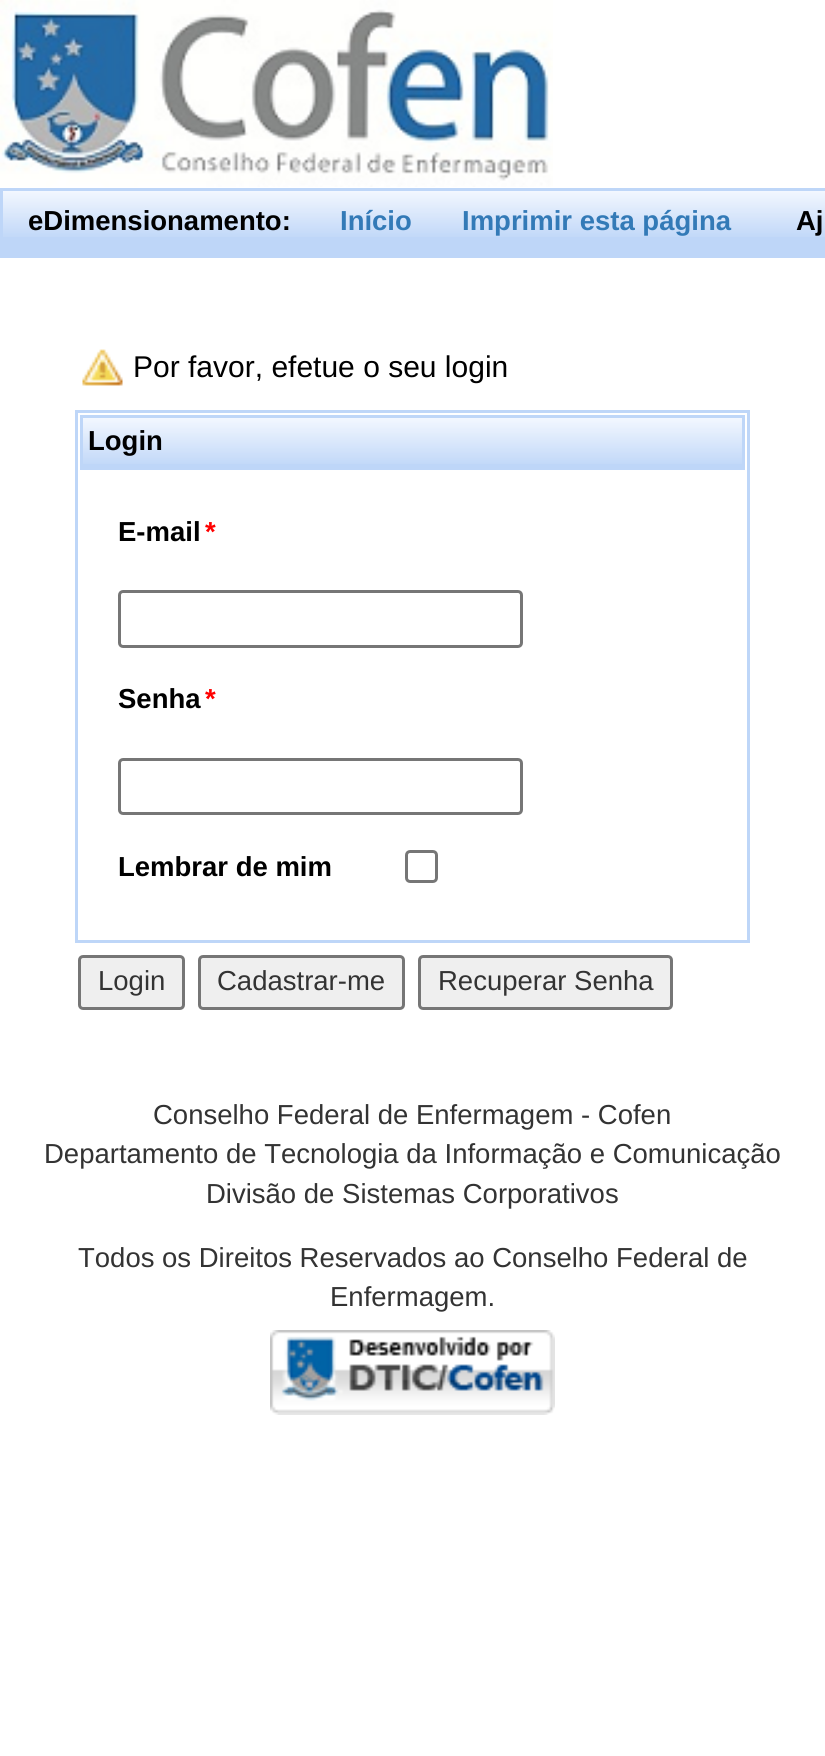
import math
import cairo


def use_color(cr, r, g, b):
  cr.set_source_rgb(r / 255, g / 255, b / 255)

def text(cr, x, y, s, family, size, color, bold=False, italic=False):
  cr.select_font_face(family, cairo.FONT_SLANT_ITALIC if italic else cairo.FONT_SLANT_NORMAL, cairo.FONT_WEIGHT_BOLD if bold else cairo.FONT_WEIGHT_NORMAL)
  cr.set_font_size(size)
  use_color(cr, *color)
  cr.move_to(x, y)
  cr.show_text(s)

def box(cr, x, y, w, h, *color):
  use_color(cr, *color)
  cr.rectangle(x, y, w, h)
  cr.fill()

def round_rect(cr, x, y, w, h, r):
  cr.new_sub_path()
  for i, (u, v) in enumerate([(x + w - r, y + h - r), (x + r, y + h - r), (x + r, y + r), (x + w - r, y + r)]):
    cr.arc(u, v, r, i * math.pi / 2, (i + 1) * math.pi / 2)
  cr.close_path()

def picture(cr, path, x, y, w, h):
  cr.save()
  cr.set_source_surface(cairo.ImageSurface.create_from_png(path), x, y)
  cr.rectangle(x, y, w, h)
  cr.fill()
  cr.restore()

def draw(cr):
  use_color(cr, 255, 255, 255)
  cr.paint()
  picture(cr, "img_01.png", 0, 0, 553, 187)
  box(cr, 3, 237, 822, 21, 190, 214, 248)
  picture(cr, "img_02.png", 3, 191, 822, 46)
  box(cr, 0, 188, 825, 3, 190, 214, 248)
  box(cr, 0, 188, 3, 70, 190, 214, 248)
  picture(cr, "img_03.png", 82, 349, 41, 37)
  cr.rectangle(76.5, 411.5, 672, 530)
  cr.set_line_width(3)
  cr.stroke()
  box(cr, 83, 464, 659, 3, 190, 214, 248)
  picture(cr, "img_04.png", 83, 418, 659, 46)
  cr.rectangle(81.5, 416.5, 662, 52)
  cr.stroke()
  round_rect(cr, 119.5, 591.5, 402, 55, 3.5)
  use_color(cr, 118, 118, 118)
  cr.stroke()
  round_rect(cr, 119.5, 759.5, 402, 54, 3.5)
  cr.stroke()
  round_rect(cr, 406.5, 851.5, 30, 30, 3.5)
  cr.stroke()
  use_color(cr, 239, 239, 239)
  round_rect(cr, 79.5, 956.5, 104, 52, 3.5)
  cr.fill_preserve()
  use_color(cr, 118, 118, 118)
  cr.stroke()
  use_color(cr, 239, 239, 239)
  round_rect(cr, 199.5, 956.5, 204, 52, 3.5)
  cr.fill_preserve()
  use_color(cr, 118, 118, 118)
  cr.stroke()
  use_color(cr, 239, 239, 239)
  round_rect(cr, 419.5, 956.5, 252, 52, 3.5)
  cr.fill_preserve()
  use_color(cr, 118, 118, 118)
  cr.stroke()
  picture(cr, "img_05.png", 270, 1330, 285, 85)
  text(cr, 28, 230, "eDimensionamento:", "Liberation Sans", 27.5, (0, 0, 0), bold=True)
  text(cr, 340, 230, "Início", "Liberation Sans", 27.5, (51, 122, 183), bold=True)
  text(cr, 462, 230, "Imprimir esta página", "Liberation Sans", 27.5, (51, 122, 183), bold=True)
  text(cr, 796, 230, "Aj", "Liberation Sans", 27.5, (0, 0, 0), bold=True)
  text(cr, 133, 377, "Por favor, efetue o seu login", "Liberation Sans", 30, (0, 0, 0))
  text(cr, 88, 450, "Login", "Liberation Sans", 27.5, (0, 0, 0), bold=True)
  text(cr, 118, 541, "E-mail", "Liberation Sans", 27.5, (0, 0, 0), bold=True)
  text(cr, 205, 541, "*", "Liberation Sans", 27.5, (255, 0, 0), bold=True)
  text(cr, 118, 708, "Senha", "Liberation Sans", 27.5, (0, 0, 0), bold=True)
  text(cr, 205, 708, "*", "Liberation Sans", 27.5, (255, 0, 0), bold=True)
  text(cr, 118, 876, "Lembrar de mim", "Liberation Sans", 27.5, (0, 0, 0), bold=True)
  text(cr, 98, 990, "Login", "Liberation Sans", 27.5, (51, 51, 51))
  text(cr, 217, 990, "Cadastrar-me", "Liberation Sans", 27.5, (51, 51, 51))
  text(cr, 438, 990, "Recuperar Senha", "Liberation Sans", 27.5, (51, 51, 51))
  text(cr, 153, 1124, "Conselho Federal de Enfermagem - Cofen", "Liberation Sans", 27.5, (51, 51, 51))
  text(cr, 44, 1163, "Departamento de Tecnologia da Informação e Comunicação", "Liberation Sans", 27.5, (51, 51, 51))
  text(cr, 206, 1203, "Divisão de Sistemas Corporativos", "Liberation Sans", 27.5, (51, 51, 51))
  text(cr, 78, 1267, "Todos os Direitos Reservados ao Conselho Federal de", "Liberation Sans", 27.5, (51, 51, 51))
  text(cr, 330, 1306, "Enfermagem.", "Liberation Sans", 27.5, (51, 51, 51))


surface = cairo.ImageSurface(cairo.FORMAT_RGB24, 825, 1756)
cr = cairo.Context(surface)
options = cairo.FontOptions()
options.set_hint_metrics(cairo.HINT_METRICS_OFF)
options.set_hint_style(cairo.HINT_STYLE_NONE)
cr.set_font_options(options)
cr.set_miter_limit(4)
draw(cr)
surface.write_to_png("out.png")
